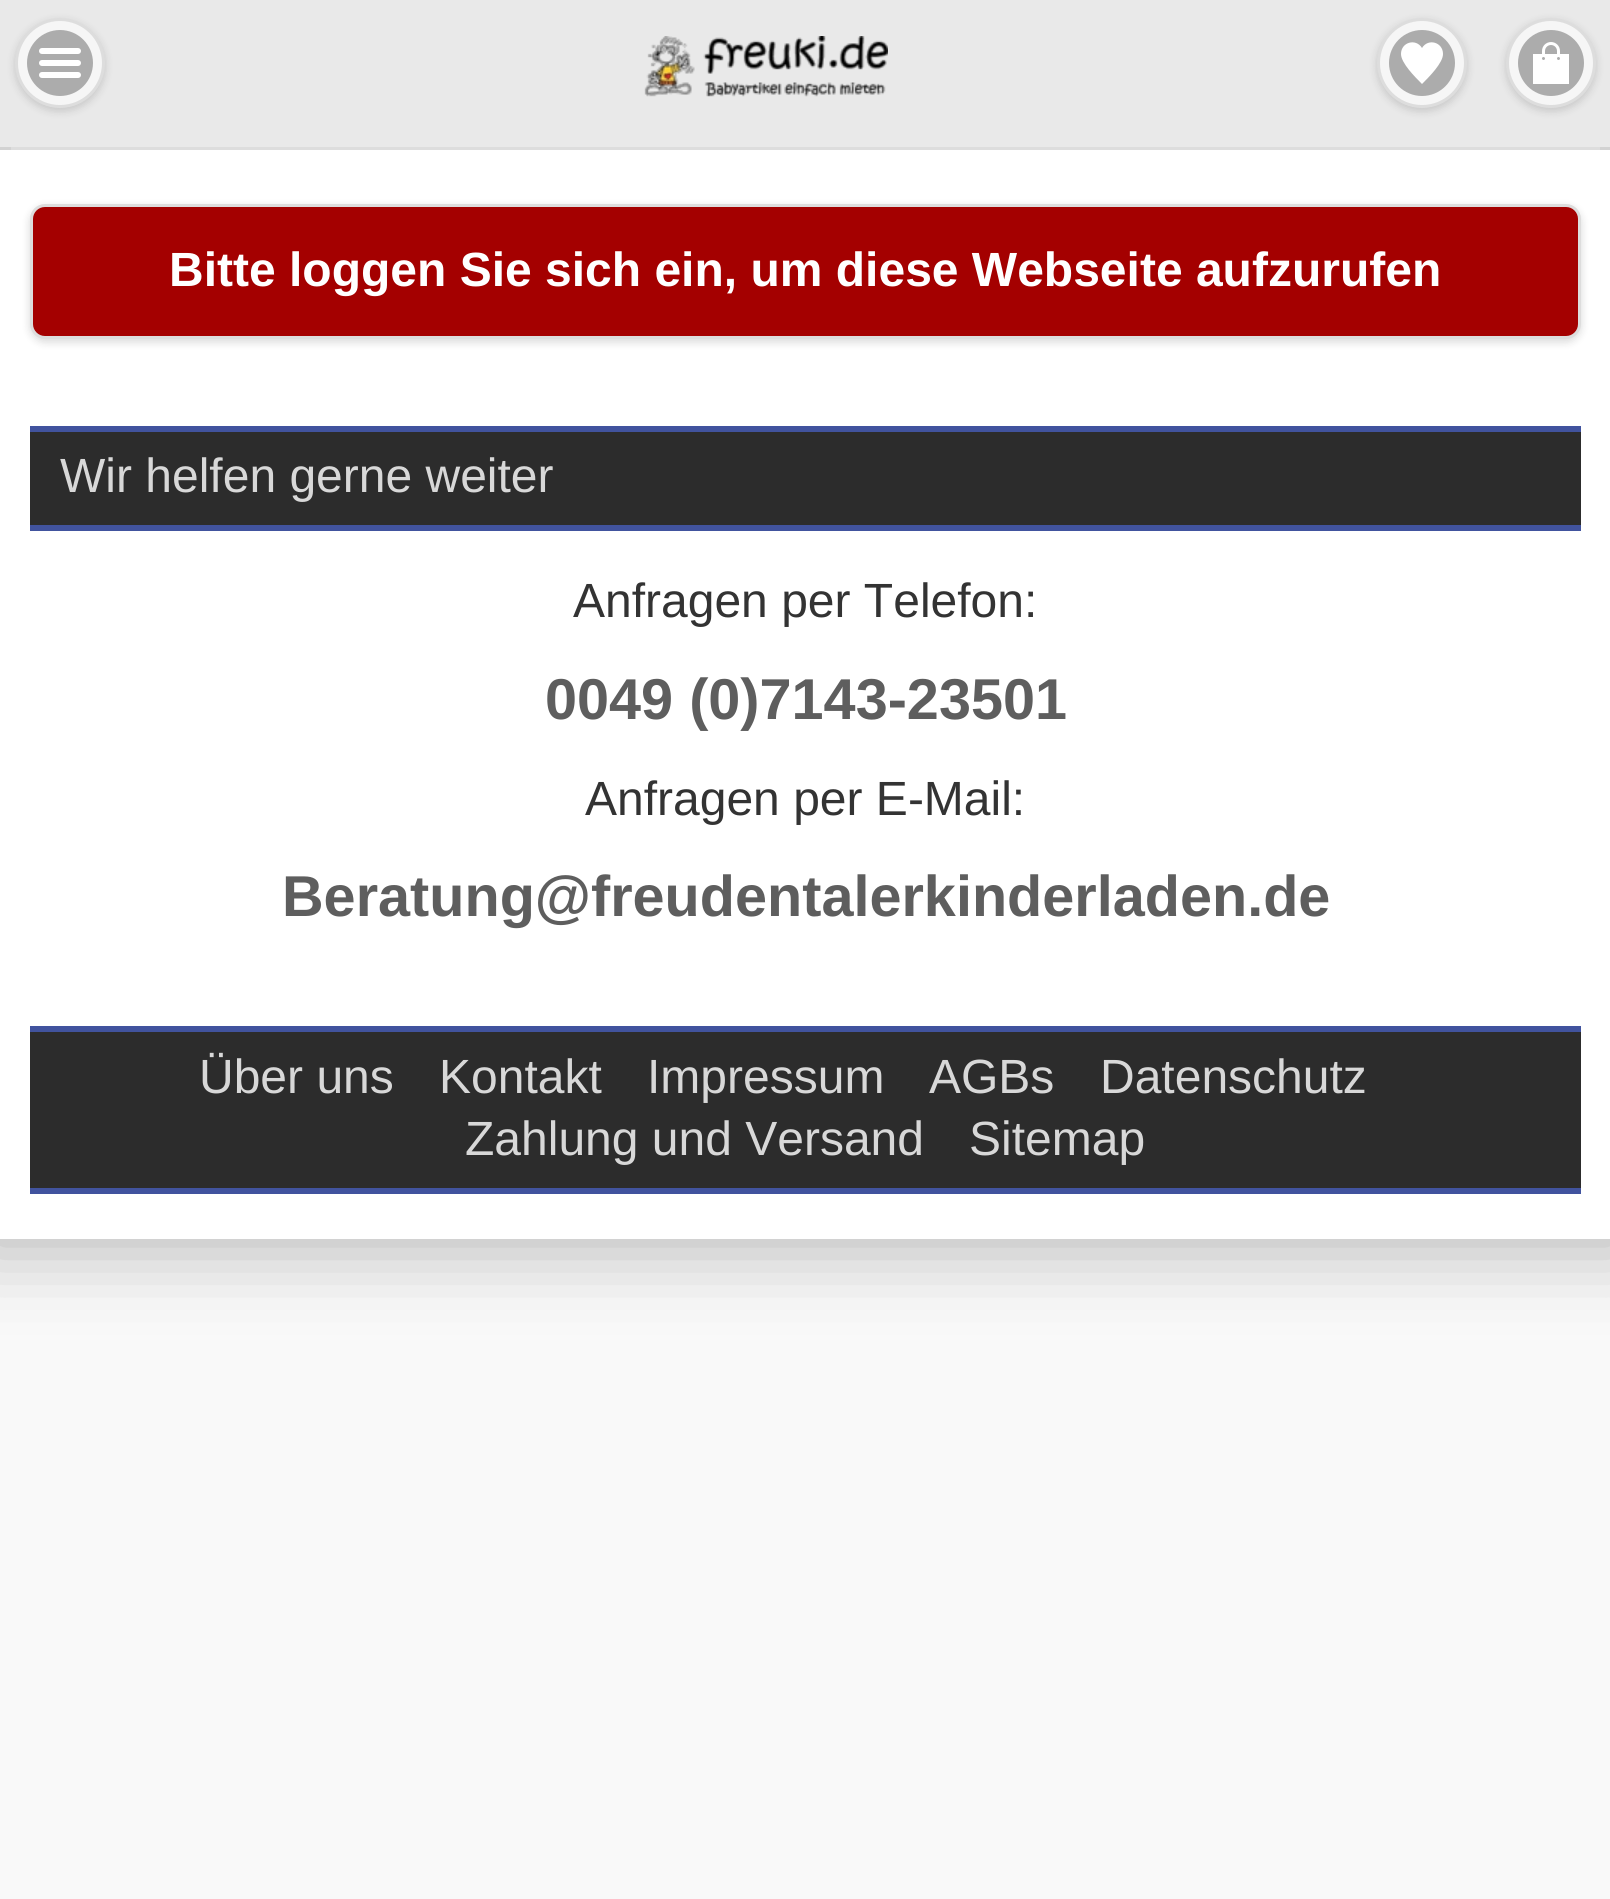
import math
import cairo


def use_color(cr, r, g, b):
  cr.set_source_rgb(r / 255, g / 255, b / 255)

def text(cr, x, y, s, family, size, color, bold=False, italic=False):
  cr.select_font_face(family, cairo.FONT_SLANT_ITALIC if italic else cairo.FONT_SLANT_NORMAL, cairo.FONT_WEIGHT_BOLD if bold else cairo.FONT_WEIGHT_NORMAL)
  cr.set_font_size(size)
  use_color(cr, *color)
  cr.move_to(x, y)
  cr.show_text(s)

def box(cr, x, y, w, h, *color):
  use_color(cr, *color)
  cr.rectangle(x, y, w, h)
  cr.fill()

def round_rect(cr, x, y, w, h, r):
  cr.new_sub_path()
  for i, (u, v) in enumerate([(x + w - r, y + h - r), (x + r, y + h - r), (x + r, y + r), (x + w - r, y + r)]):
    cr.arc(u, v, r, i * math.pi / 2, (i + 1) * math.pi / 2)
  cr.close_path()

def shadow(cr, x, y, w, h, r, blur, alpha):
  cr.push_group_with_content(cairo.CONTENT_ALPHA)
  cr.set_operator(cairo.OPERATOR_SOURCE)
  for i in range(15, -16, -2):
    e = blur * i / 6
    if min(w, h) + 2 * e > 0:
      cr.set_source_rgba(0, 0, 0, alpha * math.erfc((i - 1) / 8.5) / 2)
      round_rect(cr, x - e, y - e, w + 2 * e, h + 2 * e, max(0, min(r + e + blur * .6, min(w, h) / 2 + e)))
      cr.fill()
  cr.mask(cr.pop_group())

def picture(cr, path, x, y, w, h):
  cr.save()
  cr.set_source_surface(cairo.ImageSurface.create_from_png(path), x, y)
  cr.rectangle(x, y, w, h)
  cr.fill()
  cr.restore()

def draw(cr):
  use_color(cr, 249, 249, 249)
  cr.paint()
  use_color(cr, 0, 0, 0)
  shadow(cr, -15, 135, 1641, 1119, 0, 37.5, 0.25)
  box(cr, 0, 0, 1610, 147, 233, 233, 233)
  box(cr, 11, 147, 1589, 3, 221, 221, 221)
  use_color(cr, 0, 0, 0)
  shadow(cr, 15, 21, 90, 90, 45, 4.5, 0.15)
  use_color(cr, 246, 246, 246)
  cr.arc(60, 63, 43.5, 0, 2 * math.pi)
  cr.fill_preserve()
  use_color(cr, 221, 221, 221)
  cr.set_line_width(3)
  cr.stroke()
  use_color(cr, 172, 172, 172)
  cr.arc(60, 63, 33, 0, 2 * math.pi)
  cr.fill()
  picture(cr, "img_01.png", 39, 48, 42, 30)
  picture(cr, "img_02.png", 644, 36, 244, 61)
  use_color(cr, 0, 0, 0)
  shadow(cr, 1377, 21, 90, 90, 45, 4.5, 0.15)
  use_color(cr, 246, 246, 246)
  cr.arc(1422, 63, 43.5, 0, 2 * math.pi)
  cr.fill_preserve()
  use_color(cr, 221, 221, 221)
  cr.stroke()
  use_color(cr, 172, 172, 172)
  cr.arc(1422, 63, 33, 0, 2 * math.pi)
  cr.fill()
  use_color(cr, 255, 255, 255)
  cr.new_path()
  cr.move_to(1422, 48)
  cr.curve_to(1416, 38, 1401, 42, 1401, 54)
  cr.curve_to(1401, 63, 1415, 77, 1422, 84)
  cr.curve_to(1429, 77, 1443, 63, 1443, 54)
  cr.curve_to(1443, 42, 1428, 38, 1422, 48)
  cr.close_path()
  cr.fill()
  use_color(cr, 0, 0, 0)
  shadow(cr, 1506, 21, 90, 90, 45, 4.5, 0.15)
  use_color(cr, 246, 246, 246)
  cr.arc(1551, 63, 43.5, 0, 2 * math.pi)
  cr.fill_preserve()
  use_color(cr, 221, 221, 221)
  cr.stroke()
  use_color(cr, 172, 172, 172)
  cr.arc(1551, 63, 33, 0, 2 * math.pi)
  cr.fill()
  picture(cr, "img_03.png", 1533, 42, 36, 42)
  box(cr, 0, 150, 1610, 1089, 255, 255, 255)
  use_color(cr, 0, 0, 0)
  shadow(cr, 30, 207, 1551, 135, 15, 4.5, 0.15)
  use_color(cr, 164, 0, 0)
  round_rect(cr, 31.5, 205.5, 1548, 132, 13.5)
  cr.fill_preserve()
  use_color(cr, 221, 221, 221)
  cr.stroke()
  box(cr, 30, 432, 1551, 93, 44, 44, 44)
  box(cr, 30, 426, 1551, 6, 65, 83, 158)
  box(cr, 30, 525, 1551, 6, 65, 83, 158)
  box(cr, 30, 1032, 1551, 156, 44, 44, 44)
  box(cr, 30, 1026, 1551, 6, 65, 83, 158)
  box(cr, 30, 1188, 1551, 6, 65, 83, 158)
  text(cr, 169, 286, "Bitte loggen Sie sich ein, um diese Webseite aufzurufen", "Liberation Sans", 48, (255, 255, 255), bold=True)
  text(cr, 60, 492, "Wir helfen gerne weiter", "Liberation Sans", 48, (216, 216, 216))
  text(cr, 573, 617, "Anfragen per Telefon:", "Liberation Sans", 48, (51, 51, 51))
  text(cr, 545, 719, "0049 (0)7143-23501", "Liberation Sans", 57.6, (94, 94, 94), bold=True)
  text(cr, 585, 815, "Anfragen per E-Mail:", "Liberation Sans", 48, (51, 51, 51))
  text(cr, 282, 916, "Beratung@freudentalerkinderladen.de", "Liberation Sans", 57.6, (94, 94, 94), bold=True)
  text(cr, 199, 1093, "Über uns", "Liberation Sans", 48, (216, 216, 216))
  text(cr, 439, 1093, "Kontakt", "Liberation Sans", 48, (216, 216, 216))
  text(cr, 647, 1093, "Impressum", "Liberation Sans", 48, (216, 216, 216))
  text(cr, 929, 1093, "AGBs", "Liberation Sans", 48, (216, 216, 216))
  text(cr, 1100, 1093, "Datenschutz", "Liberation Sans", 48, (216, 216, 216))
  text(cr, 465, 1155, "Zahlung und Versand", "Liberation Sans", 48, (216, 216, 216))
  text(cr, 969, 1155, "Sitemap", "Liberation Sans", 48, (216, 216, 216))


surface = cairo.ImageSurface(cairo.FORMAT_RGB24, 1610, 1899)
cr = cairo.Context(surface)
options = cairo.FontOptions()
options.set_hint_metrics(cairo.HINT_METRICS_OFF)
options.set_hint_style(cairo.HINT_STYLE_NONE)
cr.set_font_options(options)
cr.set_miter_limit(4)
draw(cr)
surface.write_to_png("out.png")
